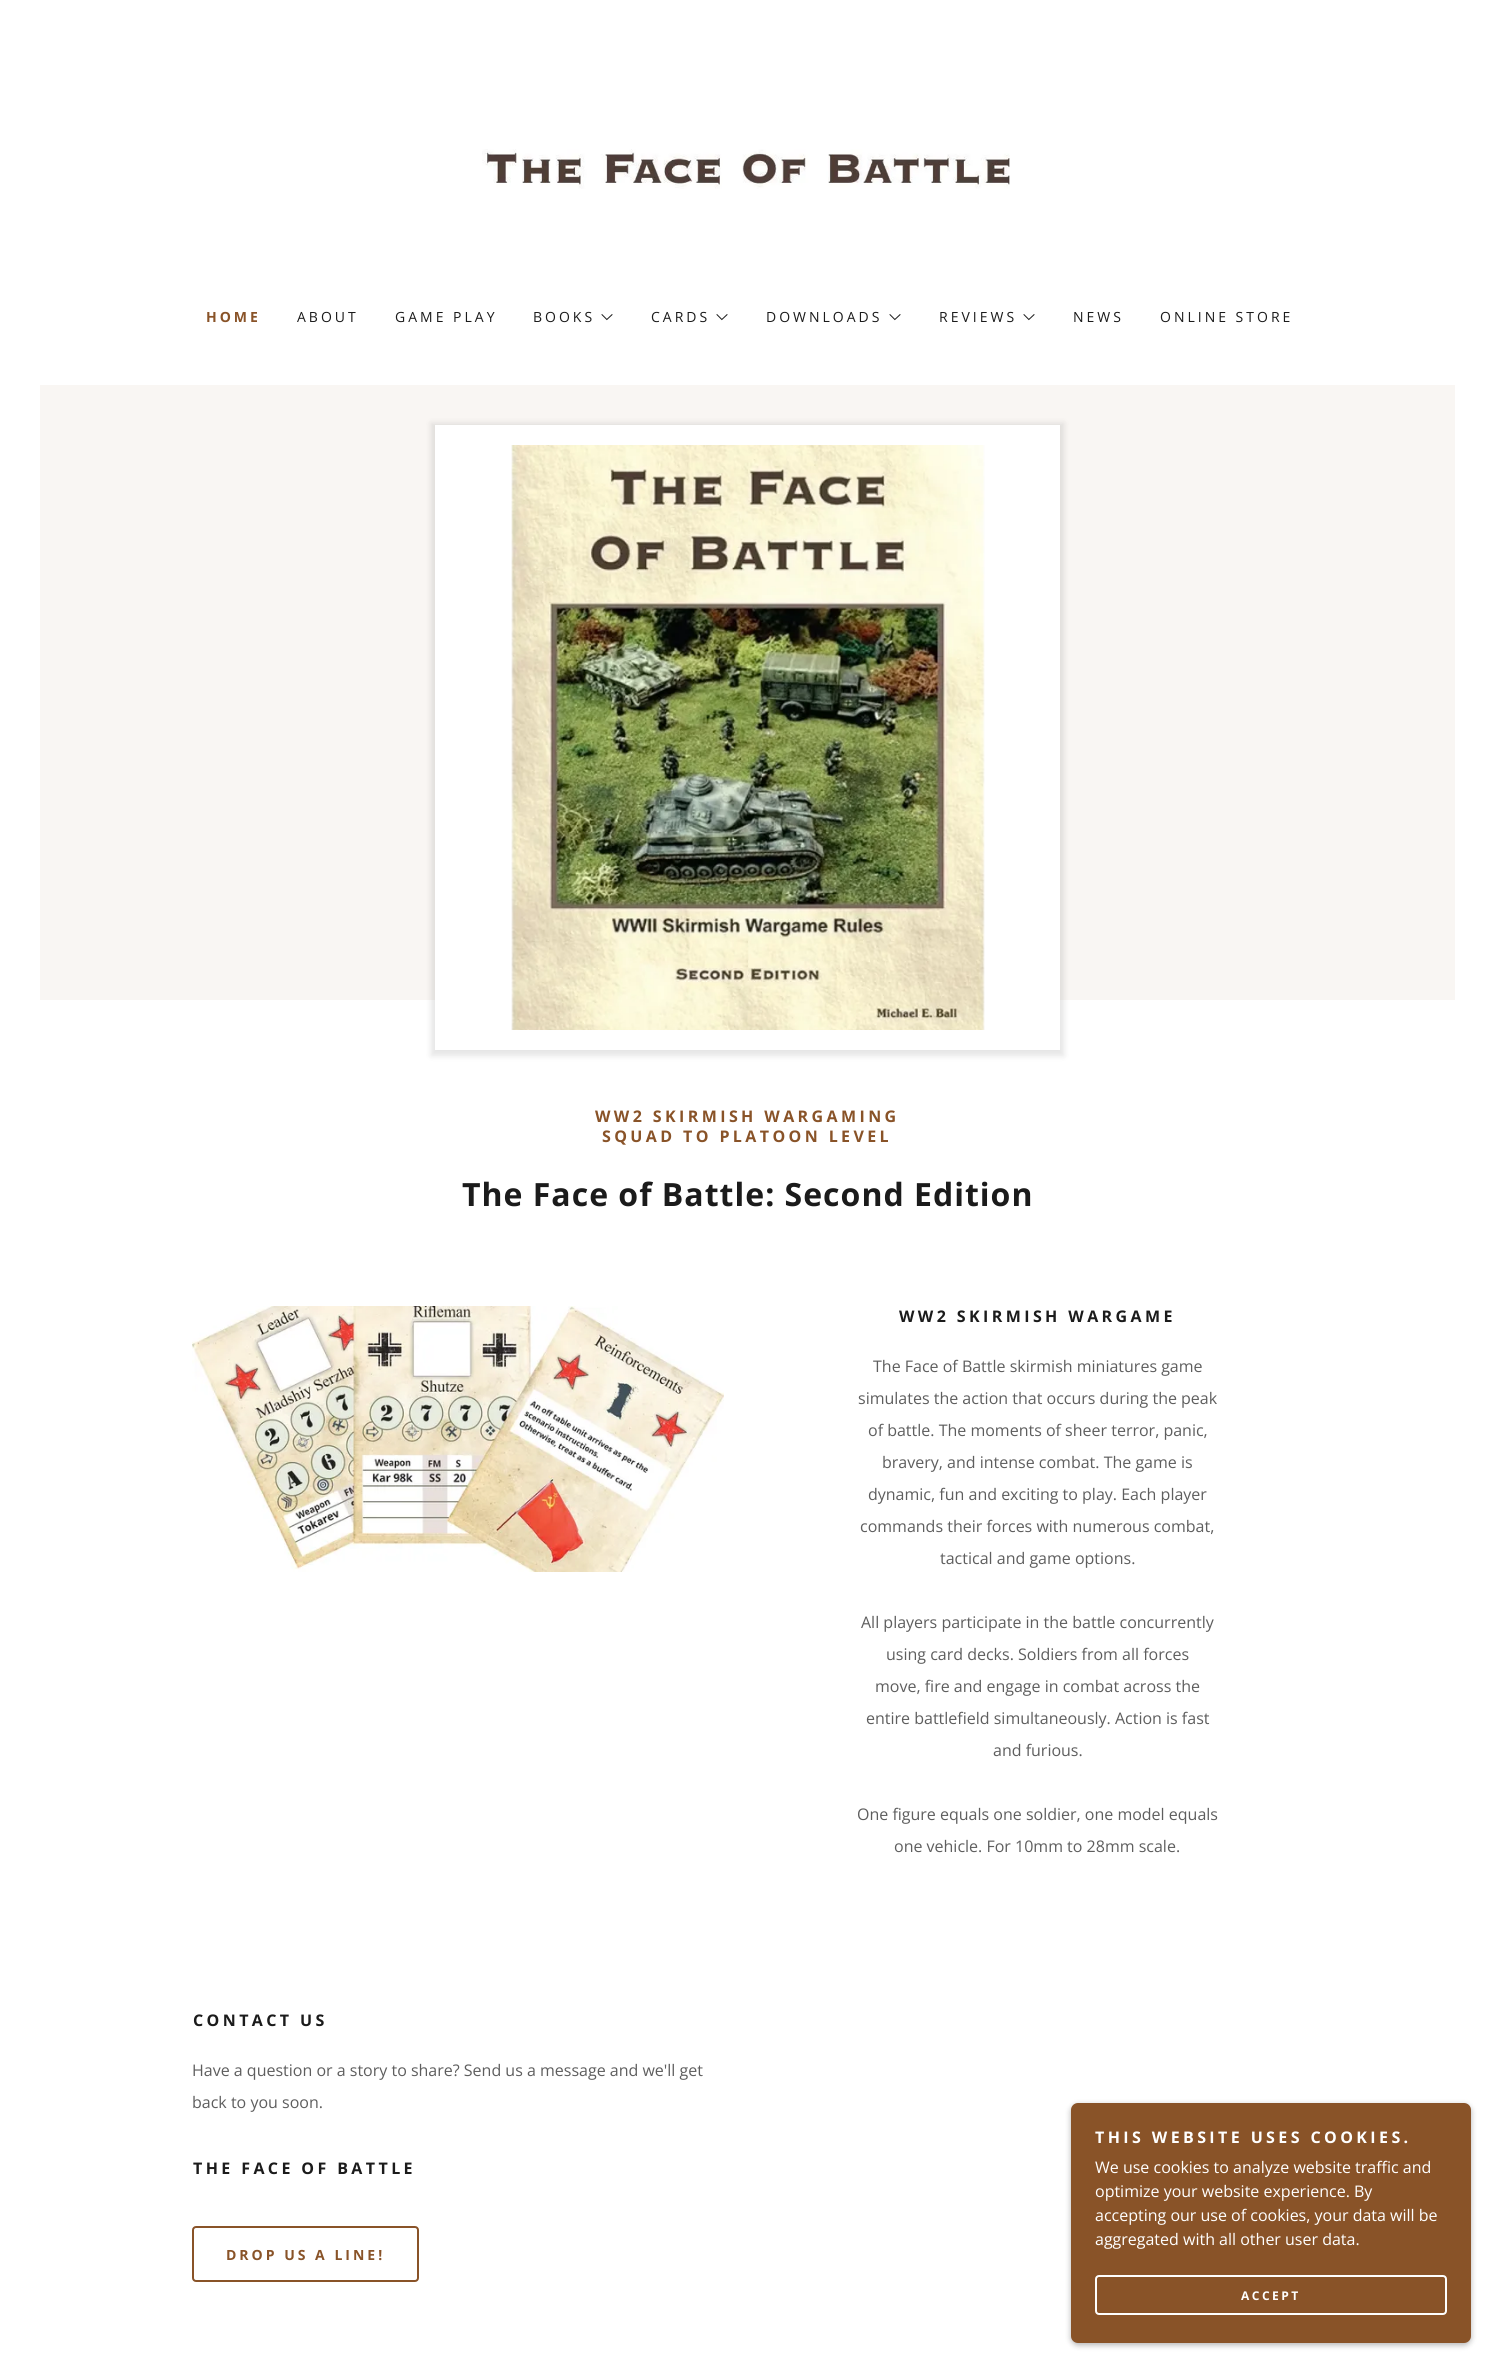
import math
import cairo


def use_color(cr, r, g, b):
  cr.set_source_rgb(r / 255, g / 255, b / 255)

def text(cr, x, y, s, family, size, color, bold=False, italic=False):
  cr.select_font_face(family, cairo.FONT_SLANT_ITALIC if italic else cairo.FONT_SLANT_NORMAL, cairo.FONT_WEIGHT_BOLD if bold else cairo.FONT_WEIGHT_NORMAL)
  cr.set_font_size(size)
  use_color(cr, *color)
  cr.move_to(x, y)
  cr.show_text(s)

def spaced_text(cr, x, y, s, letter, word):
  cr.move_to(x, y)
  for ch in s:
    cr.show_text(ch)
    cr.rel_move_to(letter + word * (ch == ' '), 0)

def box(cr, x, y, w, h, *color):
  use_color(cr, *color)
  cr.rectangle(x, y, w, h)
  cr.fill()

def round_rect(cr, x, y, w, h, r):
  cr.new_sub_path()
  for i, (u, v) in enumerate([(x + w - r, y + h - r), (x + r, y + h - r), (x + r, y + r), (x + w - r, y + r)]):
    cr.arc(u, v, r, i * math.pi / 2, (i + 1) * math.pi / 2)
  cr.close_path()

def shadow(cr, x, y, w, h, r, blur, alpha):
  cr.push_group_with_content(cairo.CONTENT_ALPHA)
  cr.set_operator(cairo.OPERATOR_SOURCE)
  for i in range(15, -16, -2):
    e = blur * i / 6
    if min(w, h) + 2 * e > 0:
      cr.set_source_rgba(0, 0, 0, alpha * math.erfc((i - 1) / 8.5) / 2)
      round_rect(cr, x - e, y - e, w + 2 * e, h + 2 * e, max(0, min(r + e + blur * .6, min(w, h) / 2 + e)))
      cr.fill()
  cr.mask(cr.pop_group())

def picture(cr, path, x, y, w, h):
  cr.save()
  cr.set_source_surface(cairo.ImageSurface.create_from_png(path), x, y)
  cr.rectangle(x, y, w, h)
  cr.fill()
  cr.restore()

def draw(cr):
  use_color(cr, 255, 255, 255)
  cr.paint()
  picture(cr, "img_01.png", 482, 149, 528, 40)
  picture(cr, "img_02.png", 601, 314, 12, 7)
  picture(cr, "img_02.png", 716, 314, 12, 7)
  picture(cr, "img_02.png", 889, 314, 12, 7)
  picture(cr, "img_02.png", 1023, 314, 12, 7)
  box(cr, 40, 385, 1415, 615, 249, 246, 243)
  use_color(cr, 0, 0, 0)
  shadow(cr, 431, 423, 633, 633, 0, 3, 0.1)
  box(cr, 435, 425, 625, 625, 255, 255, 255)
  picture(cr, "img_03.png", 511, 445, 474, 585)
  picture(cr, "img_04.png", 192, 1306, 532, 266)
  round_rect(cr, 193, 2227, 225, 54, 3)
  use_color(cr, 137, 83, 40)
  cr.stroke()
  use_color(cr, 0, 0, 0)
  shadow(cr, 1071, 2105, 400, 240, 7, 3, 0.3)
  use_color(cr, 137, 83, 40)
  round_rect(cr, 1071, 2103, 400, 240, 7)
  cr.fill()
  round_rect(cr, 1096, 2276, 350, 38, 3)
  use_color(cr, 255, 255, 255)
  cr.stroke()
  cr.select_font_face("Open Sans", cairo.FONT_SLANT_NORMAL, cairo.FONT_WEIGHT_BOLD)
  cr.set_font_size(14)
  use_color(cr, 137, 83, 40)
  spaced_text(cr, 206, 322, "HOME", 3, 0)
  cr.select_font_face("Open Sans")
  use_color(cr, 27, 27, 27)
  spaced_text(cr, 297, 322, "ABOUT", 3, 0)
  spaced_text(cr, 395, 322, "GAME PLAY", 3, 0)
  spaced_text(cr, 533, 322, "BOOKS", 3, 0)
  spaced_text(cr, 651, 322, "CARDS", 3, 0)
  spaced_text(cr, 766, 322, "DOWNLOADS", 3, 0)
  spaced_text(cr, 939, 322, "REVIEWS", 3, 0)
  spaced_text(cr, 1073, 322, "NEWS", 3, 0)
  spaced_text(cr, 1160, 322, "ONLINE STORE", 3, 0)
  cr.select_font_face("Open Sans", cairo.FONT_SLANT_NORMAL, cairo.FONT_WEIGHT_BOLD)
  cr.set_font_size(16)
  use_color(cr, 137, 83, 40)
  spaced_text(cr, 595, 1122, "WW2 SKIRMISH WARGAMING", 3.4, 0)
  spaced_text(cr, 602, 1142, "SQUAD TO PLATOON LEVEL", 3.4, 0)
  cr.set_font_size(32)
  use_color(cr, 27, 27, 27)
  spaced_text(cr, 462, 1206, "The Face of Battle: Second Edition", 1, 0)
  cr.set_font_size(16)
  spaced_text(cr, 899, 1322, "WW2 SKIRMISH WARGAME", 3.4, 0)
  text(cr, 873, 1372, "The Face of Battle skirmish miniatures game", "Open Sans", 16, (94, 94, 94))
  text(cr, 858, 1404, "simulates the action that occurs during the peak", "Open Sans", 16, (94, 94, 94))
  text(cr, 868, 1436, "of battle. The moments of sheer terror, panic,", "Open Sans", 16, (94, 94, 94))
  text(cr, 882, 1468, "bravery, and intense combat. The game is", "Open Sans", 16, (94, 94, 94))
  text(cr, 868, 1500, "dynamic, fun and exciting to play. Each player", "Open Sans", 16, (94, 94, 94))
  text(cr, 860, 1532, "commands their forces with numerous combat,", "Open Sans", 16, (94, 94, 94))
  text(cr, 940, 1564, "tactical and game options.", "Open Sans", 16, (94, 94, 94))
  text(cr, 861, 1628, "All players participate in the battle concurrently", "Open Sans", 16, (94, 94, 94))
  text(cr, 886, 1660, "using card decks. Soldiers from all forces", "Open Sans", 16, (94, 94, 94))
  text(cr, 875, 1692, "move, fire and engage in combat across the", "Open Sans", 16, (94, 94, 94))
  text(cr, 866, 1724, "entire battlefield simultaneously. Action is fast", "Open Sans", 16, (94, 94, 94))
  text(cr, 993, 1756, "and furious.", "Open Sans", 16, (94, 94, 94))
  text(cr, 857, 1820, "One figure equals one soldier, one model equals", "Open Sans", 16, (94, 94, 94))
  text(cr, 894, 1852, "one vehicle. For 10mm to 28mm scale.", "Open Sans", 16, (94, 94, 94))
  cr.select_font_face("Open Sans", cairo.FONT_SLANT_NORMAL, cairo.FONT_WEIGHT_BOLD)
  use_color(cr, 27, 27, 27)
  spaced_text(cr, 193, 2026, "CONTACT US", 3.4, 0)
  text(cr, 192, 2076, "Have a question or a story to share? Send us a message and we'll get", "Open Sans", 16, (94, 94, 94))
  text(cr, 192, 2108, "back to you soon.", "Open Sans", 16, (94, 94, 94))
  cr.select_font_face("Open Sans", cairo.FONT_SLANT_NORMAL, cairo.FONT_WEIGHT_BOLD)
  use_color(cr, 27, 27, 27)
  spaced_text(cr, 193, 2174, "THE FACE OF BATTLE", 3.4, 0)
  cr.set_font_size(14)
  use_color(cr, 137, 83, 40)
  spaced_text(cr, 226, 2260, "DROP US A LINE!", 3, 0)
  cr.set_font_size(16)
  use_color(cr, 255, 255, 255)
  spaced_text(cr, 1095, 2143, "THIS WEBSITE USES COOKIES.", 3.4, 0)
  text(cr, 1095, 2173, "We use cookies to analyze website traffic and", "Open Sans", 16, (255, 255, 255))
  text(cr, 1095, 2197, "optimize your website experience. By", "Open Sans", 16, (255, 255, 255))
  text(cr, 1095, 2221, "accepting our use of cookies, your data will be", "Open Sans", 16, (255, 255, 255))
  text(cr, 1095, 2245, "aggregated with all other user data.", "Open Sans", 16, (255, 255, 255))
  cr.select_font_face("Open Sans", cairo.FONT_SLANT_NORMAL, cairo.FONT_WEIGHT_BOLD)
  cr.set_font_size(12)
  spaced_text(cr, 1241, 2300, "ACCEPT", 2.5, 0)


surface = cairo.ImageSurface(cairo.FORMAT_RGB24, 1495, 2367)
cr = cairo.Context(surface)
options = cairo.FontOptions()
options.set_hint_metrics(cairo.HINT_METRICS_OFF)
options.set_hint_style(cairo.HINT_STYLE_NONE)
cr.set_font_options(options)
cr.set_miter_limit(4)
draw(cr)
surface.write_to_png("out.png")
